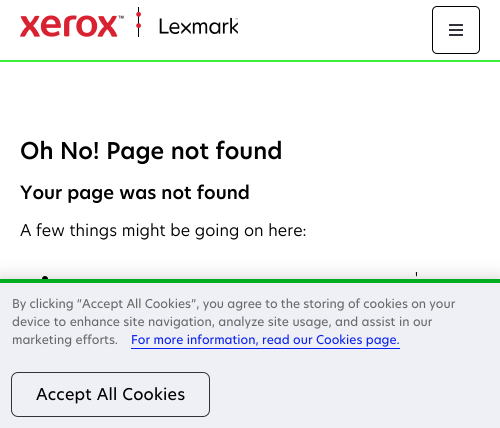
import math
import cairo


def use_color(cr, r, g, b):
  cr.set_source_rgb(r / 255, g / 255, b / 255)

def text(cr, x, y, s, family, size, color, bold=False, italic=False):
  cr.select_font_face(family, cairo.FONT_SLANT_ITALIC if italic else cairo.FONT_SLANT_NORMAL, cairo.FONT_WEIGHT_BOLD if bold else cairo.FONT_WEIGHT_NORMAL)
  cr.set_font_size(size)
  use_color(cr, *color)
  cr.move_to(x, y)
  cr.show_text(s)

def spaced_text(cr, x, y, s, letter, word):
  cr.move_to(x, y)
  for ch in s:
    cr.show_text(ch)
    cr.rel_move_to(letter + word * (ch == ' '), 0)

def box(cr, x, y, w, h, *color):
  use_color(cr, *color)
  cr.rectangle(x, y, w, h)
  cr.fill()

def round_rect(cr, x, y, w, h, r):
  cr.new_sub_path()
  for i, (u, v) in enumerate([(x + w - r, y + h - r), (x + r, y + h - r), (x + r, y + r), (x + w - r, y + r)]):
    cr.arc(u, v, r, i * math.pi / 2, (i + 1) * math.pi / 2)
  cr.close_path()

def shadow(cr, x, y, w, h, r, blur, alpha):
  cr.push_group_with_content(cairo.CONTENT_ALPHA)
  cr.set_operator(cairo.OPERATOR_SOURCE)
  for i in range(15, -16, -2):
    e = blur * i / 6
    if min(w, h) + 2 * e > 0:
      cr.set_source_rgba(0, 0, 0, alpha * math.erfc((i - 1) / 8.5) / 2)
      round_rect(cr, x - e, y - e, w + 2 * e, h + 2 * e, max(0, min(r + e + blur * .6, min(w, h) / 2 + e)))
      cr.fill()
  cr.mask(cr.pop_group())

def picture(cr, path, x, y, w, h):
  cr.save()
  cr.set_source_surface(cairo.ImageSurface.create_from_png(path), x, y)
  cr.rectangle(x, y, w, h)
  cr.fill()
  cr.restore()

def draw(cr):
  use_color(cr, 255, 255, 255)
  cr.paint()
  box(cr, 0, 60, 500, 2, 58, 242, 58)
  picture(cr, "img_01.png", 20, 7, 218, 30)
  round_rect(cr, 432.5, 6.5, 47, 47, 4.5)
  use_color(cr, 0, 0, 0)
  cr.set_line_width(1)
  cr.stroke()
  picture(cr, "img_02.png", 449, 24, 14, 12)
  cr.arc(45, 279, 3, 0, 2 * math.pi)
  cr.fill()
  use_color(cr, 0, 0, 0)
  shadow(cr, 0, 279, 500, 149, 0, 9, 0.2)
  box(cr, 0, 283, 500, 145, 239, 240, 246)
  box(cr, 0, 279, 500, 4, 0, 173, 33)
  box(cr, 131, 348, 269, 1, 10, 33, 238)
  round_rect(cr, 11.5, 372.5, 198, 44, 6.5)
  use_color(cr, 50, 50, 60)
  cr.stroke()
  text(cr, 20, 159, "Oh No! Page not found", "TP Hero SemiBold", 22.75, (0, 0, 0))
  text(cr, 20, 199, "Your page was not found", "TP Hero SemiBold", 18, (0, 0, 0))
  text(cr, 20, 236, "A few things might be going on here:", "TP Hero", 16, (0, 0, 0))
  text(cr, 415, 284, "'", "TP Hero", 16, (0, 0, 0))
  cr.select_font_face("TP Hero Medium")
  cr.set_font_size(12)
  use_color(cr, 105, 105, 105)
  spaced_text(cr, 12, 308, "By clicking “Accept All Cookies”, you agree to the storing of cookies on your", 0, -0.25)
  text(cr, 12, 326, "device to enhance site navigation, analyze site usage, and assist in our", "TP Hero Medium", 12, (105, 105, 105))
  text(cr, 12, 344, "marketing efforts.", "TP Hero Medium", 12, (105, 105, 105))
  text(cr, 131, 344, "For more information, read our Cookies page.", "TP Hero Medium", 12, (10, 33, 238))
  cr.set_font_size(16)
  use_color(cr, 0, 0, 0)
  spaced_text(cr, 36, 400, "Accept All Cookies", 0.2, 0)


surface = cairo.ImageSurface(cairo.FORMAT_RGB24, 500, 428)
cr = cairo.Context(surface)
options = cairo.FontOptions()
options.set_hint_metrics(cairo.HINT_METRICS_OFF)
options.set_hint_style(cairo.HINT_STYLE_NONE)
cr.set_font_options(options)
cr.set_miter_limit(4)
draw(cr)
surface.write_to_png("out.png")
